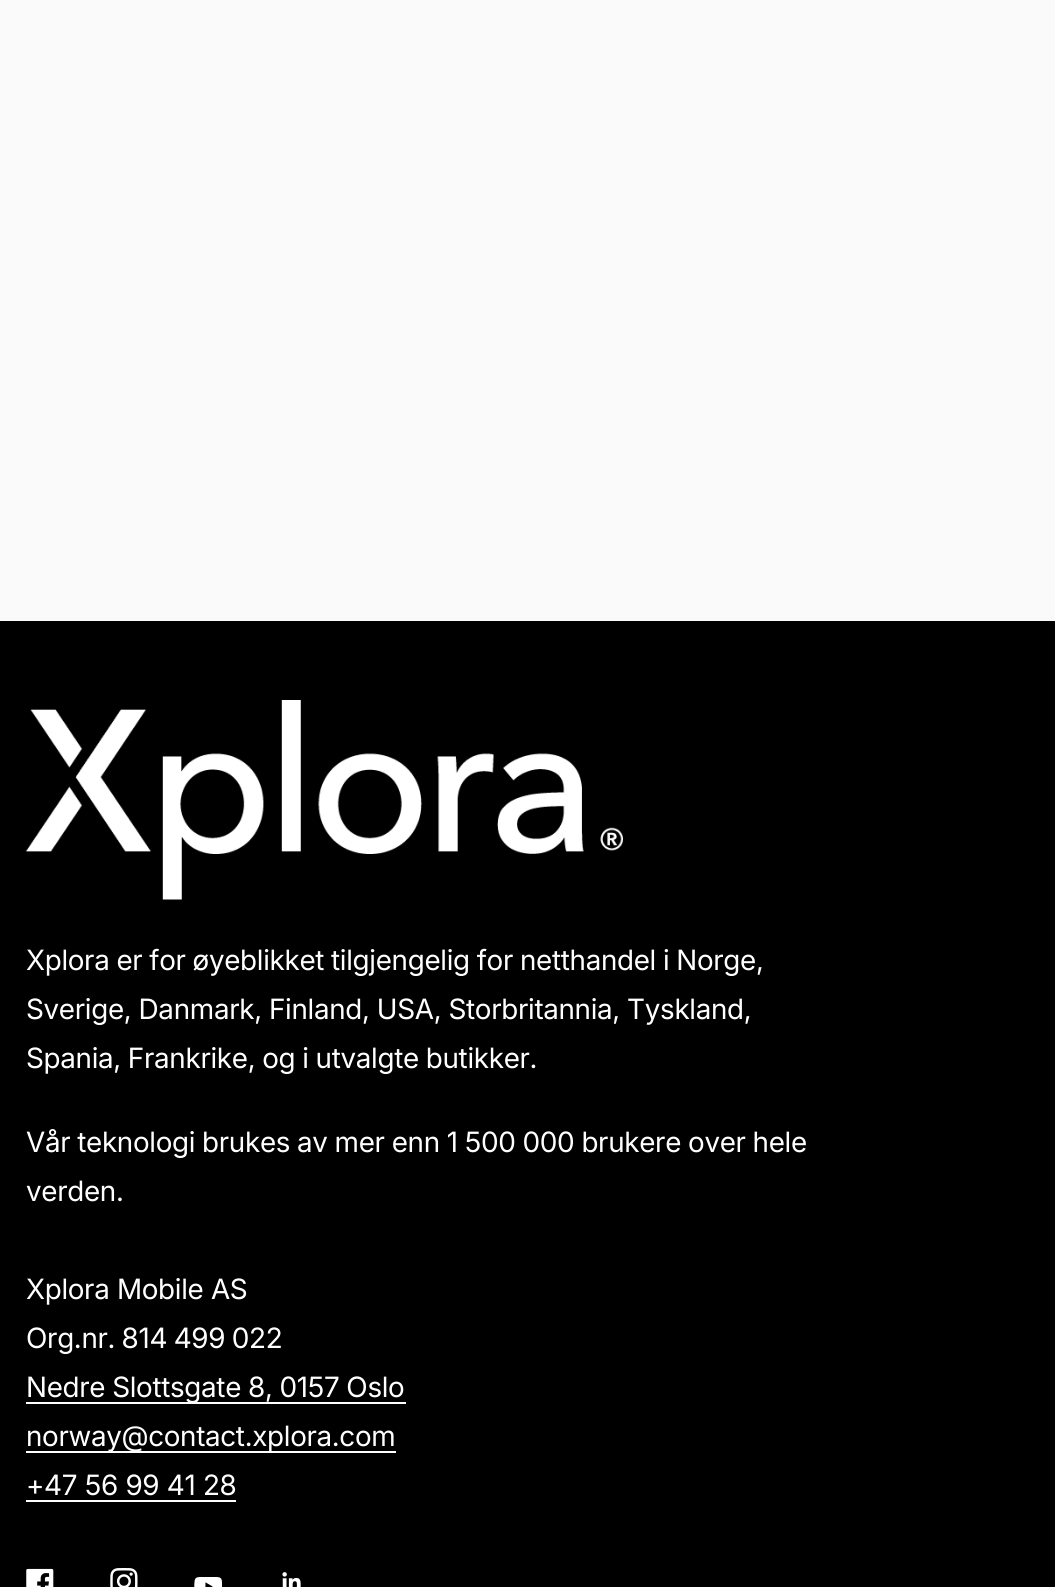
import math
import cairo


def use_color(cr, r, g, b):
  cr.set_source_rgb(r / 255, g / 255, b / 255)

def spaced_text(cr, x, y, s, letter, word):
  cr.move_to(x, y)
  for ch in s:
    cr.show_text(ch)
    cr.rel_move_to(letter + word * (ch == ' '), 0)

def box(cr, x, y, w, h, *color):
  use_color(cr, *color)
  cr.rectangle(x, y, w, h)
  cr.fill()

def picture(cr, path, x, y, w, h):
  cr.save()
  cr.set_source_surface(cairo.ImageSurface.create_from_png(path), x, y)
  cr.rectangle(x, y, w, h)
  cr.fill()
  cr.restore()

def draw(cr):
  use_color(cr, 0, 0, 0)
  cr.paint()
  box(cr, 0, 0, 1055, 621, 250, 250, 250)
  picture(cr, "img_01.png", 26, 700, 597, 200)
  box(cr, 26, 1402, 380, 2, 255, 255, 255)
  box(cr, 26, 1451, 370, 2, 255, 255, 255)
  box(cr, 26, 1500, 210, 2, 255, 255, 255)
  picture(cr, "img_02.png", 26, 1568, 28, 19)
  picture(cr, "img_03.png", 110, 1568, 28, 19)
  picture(cr, "img_04.png", 194, 1577, 28, 10)
  picture(cr, "img_05.png", 282, 1572, 19, 15)
  cr.select_font_face("Inter")
  cr.set_font_size(28)
  spaced_text(cr, 26, 970, "Xplora er for øyeblikket tilgjengelig for netthandel i Norge,", -0.3, -0.5)
  spaced_text(cr, 26, 1019, "Sverige, Danmark, Finland, USA, Storbritannia, Tyskland,", -0.3, -0.25)
  spaced_text(cr, 26, 1068, "Spania, Frankrike, og i utvalgte butikker.", -0.3, -0.5)
  spaced_text(cr, 26, 1152, "Vår teknologi brukes av mer enn 1 500 000 brukere over hele", -0.3, -0.5)
  spaced_text(cr, 26, 1201, "verden.", -0.3, 0)
  spaced_text(cr, 26, 1299, "Xplora Mobile AS", -0.3, 0)
  spaced_text(cr, 26, 1348, "Org.nr. 814 499 022", -0.3, -1)
  spaced_text(cr, 26, 1397, "Nedre Slottsgate 8, 0157 Oslo", -0.3, -0.5)
  spaced_text(cr, 26, 1446, "norway@contact.xplora.com", -0.3, 0)
  spaced_text(cr, 26, 1495, "+47 56 99 41 28", -0.3, 0)


surface = cairo.ImageSurface(cairo.FORMAT_RGB24, 1055, 1587)
cr = cairo.Context(surface)
options = cairo.FontOptions()
options.set_hint_metrics(cairo.HINT_METRICS_OFF)
options.set_hint_style(cairo.HINT_STYLE_NONE)
cr.set_font_options(options)
cr.set_miter_limit(4)
draw(cr)
surface.write_to_png("out.png")
